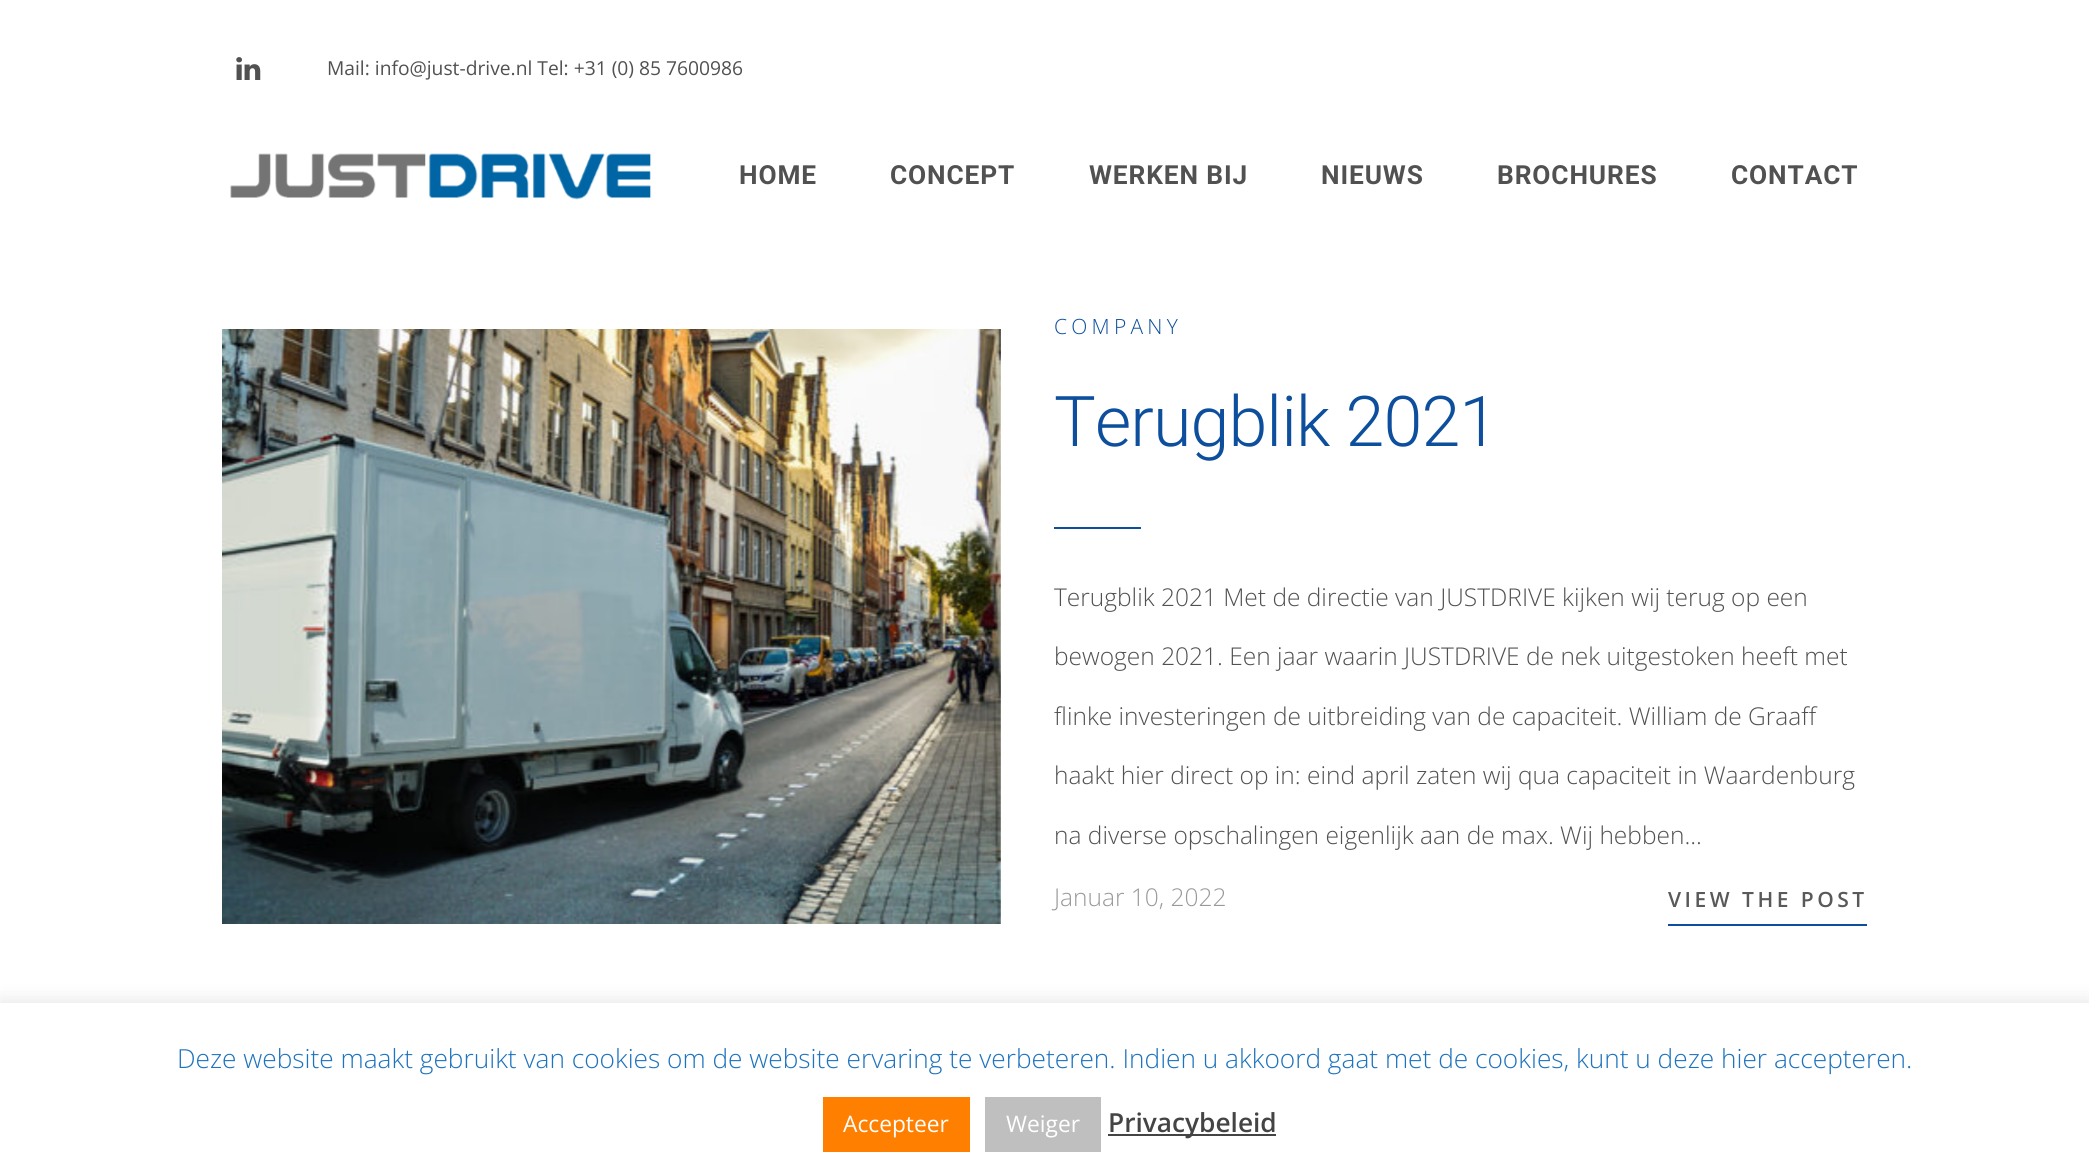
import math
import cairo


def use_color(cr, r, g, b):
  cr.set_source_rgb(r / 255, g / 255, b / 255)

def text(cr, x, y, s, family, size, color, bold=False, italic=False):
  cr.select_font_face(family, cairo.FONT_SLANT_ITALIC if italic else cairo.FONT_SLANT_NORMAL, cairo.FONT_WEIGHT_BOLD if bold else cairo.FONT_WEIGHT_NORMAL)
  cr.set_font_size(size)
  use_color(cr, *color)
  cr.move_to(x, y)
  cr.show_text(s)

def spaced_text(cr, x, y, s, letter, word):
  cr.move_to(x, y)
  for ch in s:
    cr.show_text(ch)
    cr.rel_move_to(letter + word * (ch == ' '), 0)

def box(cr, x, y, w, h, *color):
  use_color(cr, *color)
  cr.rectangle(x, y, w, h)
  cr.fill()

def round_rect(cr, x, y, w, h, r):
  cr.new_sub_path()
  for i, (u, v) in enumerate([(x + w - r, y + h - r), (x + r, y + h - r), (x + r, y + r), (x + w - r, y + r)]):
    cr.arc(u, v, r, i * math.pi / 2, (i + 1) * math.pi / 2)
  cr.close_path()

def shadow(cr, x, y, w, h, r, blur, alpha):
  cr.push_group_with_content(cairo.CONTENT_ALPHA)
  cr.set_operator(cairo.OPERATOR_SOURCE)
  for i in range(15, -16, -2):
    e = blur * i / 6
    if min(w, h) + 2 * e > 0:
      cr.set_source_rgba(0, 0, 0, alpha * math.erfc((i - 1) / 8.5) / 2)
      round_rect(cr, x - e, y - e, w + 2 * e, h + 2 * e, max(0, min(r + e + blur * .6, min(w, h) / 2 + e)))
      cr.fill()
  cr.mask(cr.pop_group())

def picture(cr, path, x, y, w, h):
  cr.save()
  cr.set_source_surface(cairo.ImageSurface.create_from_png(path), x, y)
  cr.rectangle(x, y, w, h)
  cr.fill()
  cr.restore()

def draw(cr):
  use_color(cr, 255, 255, 255)
  cr.paint()
  picture(cr, "img_01.png", 236, 57, 25, 23)
  picture(cr, "img_02.png", 230, 153, 422, 47)
  picture(cr, "img_03.png", 222, 329, 779, 595)
  box(cr, 1054, 527, 87, 2, 13, 79, 157)
  box(cr, 1668, 924, 199, 2, 13, 79, 157)
  use_color(cr, 172, 171, 171)
  shadow(cr, 0, 1001, 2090, 170, 0, 9, 0.3)
  box(cr, 0, 1003, 2089, 168, 255, 255, 255)
  box(cr, 823, 1097, 147, 55, 255, 127, 0)
  box(cr, 985, 1097, 116, 55, 191, 191, 191)
  box(cr, 1108, 1134, 168, 2, 68, 68, 68)
  text(cr, 327, 75, "Mail: info@just-drive.nl Tel: +31 (0) 85 7600986", "Open Sans", 19.25, (81, 81, 81))
  cr.select_font_face("Roboto", cairo.FONT_SLANT_NORMAL, cairo.FONT_WEIGHT_BOLD)
  cr.set_font_size(26.25)
  spaced_text(cr, 739, 184, "HOME", 0.9, 0)
  spaced_text(cr, 890, 184, "CONCEPT", 0.9, 0)
  spaced_text(cr, 1089, 184, "WERKEN BIJ", 0.9, 0)
  spaced_text(cr, 1321, 184, "NIEUWS", 0.9, 0)
  spaced_text(cr, 1497, 184, "BROCHURES", 0.9, 0)
  spaced_text(cr, 1731, 184, "CONTACT", 0.9, 0)
  cr.select_font_face("Open Sans Light")
  cr.set_font_size(21)
  use_color(cr, 13, 79, 157)
  spaced_text(cr, 1054, 334, "COMPANY", 4.25, 0)
  cr.select_font_face("Roboto Light")
  cr.set_font_size(70)
  spaced_text(cr, 1054, 446, "Terugblik 2021", -0.9, 0)
  text(cr, 1054, 606, "Terugblik 2021 Met de directie van JUSTDRIVE kijken wij terug op een", "Open Sans Light", 24.5, (81, 81, 81))
  text(cr, 1054, 665, "bewogen 2021. Een jaar waarin JUSTDRIVE de nek uitgestoken heeft met", "Open Sans Light", 24.5, (81, 81, 81))
  text(cr, 1054, 725, "flinke investeringen de uitbreiding van de capaciteit. William de Graaff", "Open Sans Light", 24.5, (81, 81, 81))
  text(cr, 1054, 784, "haakt hier direct op in: eind april zaten wij qua capaciteit in Waardenburg", "Open Sans Light", 24.5, (81, 81, 81))
  text(cr, 1054, 844, "na diverse opschalingen eigenlijk aan de max. Wij hebben...", "Open Sans Light", 24.5, (81, 81, 81))
  text(cr, 1054, 906, "Januar 10, 2022", "Open Sans Light", 24.5, (153, 153, 153))
  cr.select_font_face("Open Sans SemiBold")
  cr.set_font_size(21)
  use_color(cr, 89, 89, 89)
  spaced_text(cr, 1668, 907, "VIEW THE POST", 3.5, 0)
  text(cr, 177, 1068, "Deze website maakt gebruikt van cookies om de website ervaring te verbeteren. Indien u akkoord gaat met de cookies, kunt u deze hier accepteren.", "Open Sans Light", 26.25, (30, 115, 190))
  text(cr, 843, 1132, "Accepteer", "Open Sans", 22.75, (255, 255, 255))
  text(cr, 1006, 1132, "Weiger", "Open Sans", 22.75, (255, 255, 255))
  text(cr, 1108, 1132, "Privacybeleid", "Open Sans SemiBold", 26.25, (68, 68, 68))


surface = cairo.ImageSurface(cairo.FORMAT_RGB24, 2089, 1171)
cr = cairo.Context(surface)
options = cairo.FontOptions()
options.set_hint_metrics(cairo.HINT_METRICS_OFF)
options.set_hint_style(cairo.HINT_STYLE_NONE)
cr.set_font_options(options)
cr.set_miter_limit(4)
draw(cr)
surface.write_to_png("out.png")
